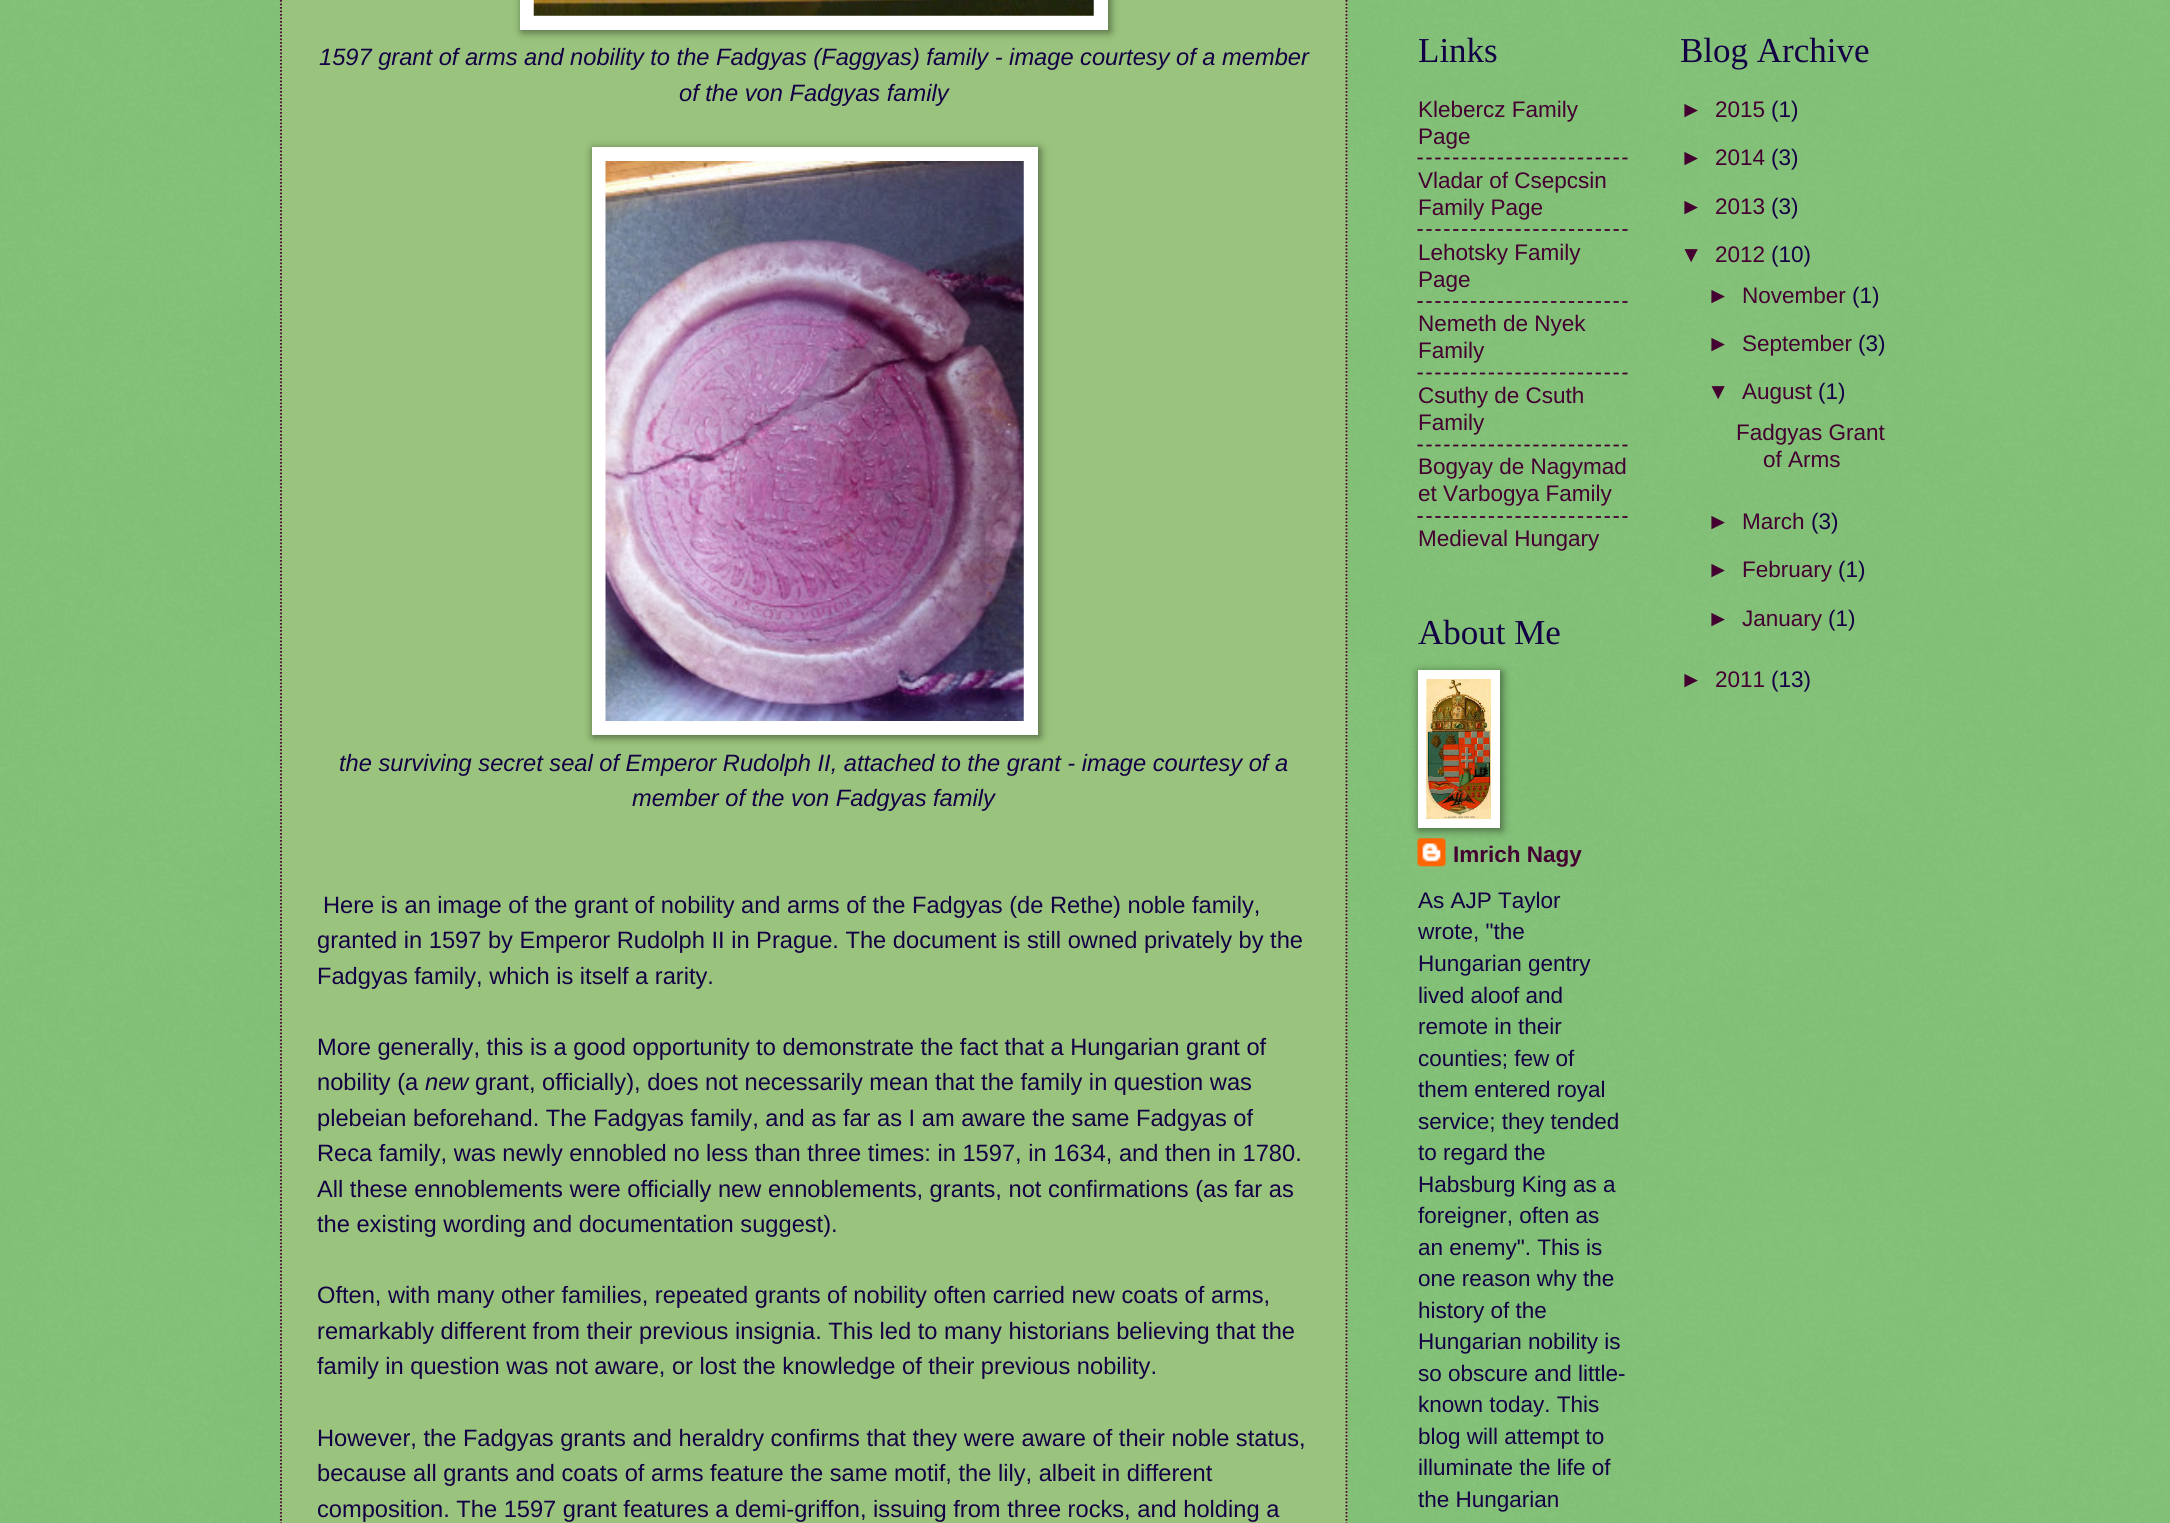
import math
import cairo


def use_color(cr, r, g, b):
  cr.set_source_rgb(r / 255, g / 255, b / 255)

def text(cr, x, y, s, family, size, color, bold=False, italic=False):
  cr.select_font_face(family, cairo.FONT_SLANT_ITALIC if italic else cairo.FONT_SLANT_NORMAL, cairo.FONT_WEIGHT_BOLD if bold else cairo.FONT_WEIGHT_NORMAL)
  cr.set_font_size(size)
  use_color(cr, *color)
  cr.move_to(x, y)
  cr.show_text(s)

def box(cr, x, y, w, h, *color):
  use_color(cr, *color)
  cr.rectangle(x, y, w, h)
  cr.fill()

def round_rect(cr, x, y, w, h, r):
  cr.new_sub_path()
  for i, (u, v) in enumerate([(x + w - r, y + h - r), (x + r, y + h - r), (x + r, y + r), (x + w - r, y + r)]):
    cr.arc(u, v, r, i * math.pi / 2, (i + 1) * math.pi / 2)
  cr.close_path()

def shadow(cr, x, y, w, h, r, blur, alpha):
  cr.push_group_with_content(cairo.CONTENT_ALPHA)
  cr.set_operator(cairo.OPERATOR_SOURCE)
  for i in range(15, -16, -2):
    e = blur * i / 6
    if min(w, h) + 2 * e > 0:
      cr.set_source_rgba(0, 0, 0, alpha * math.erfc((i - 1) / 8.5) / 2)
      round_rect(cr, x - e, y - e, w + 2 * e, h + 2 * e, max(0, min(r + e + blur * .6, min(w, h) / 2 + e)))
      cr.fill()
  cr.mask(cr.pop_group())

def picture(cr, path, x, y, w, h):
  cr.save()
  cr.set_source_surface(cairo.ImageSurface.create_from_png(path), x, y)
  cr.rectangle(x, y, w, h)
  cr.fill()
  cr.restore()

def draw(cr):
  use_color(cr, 110, 182, 97)
  cr.paint()
  picture(cr, "img_01.png", 0, 0, 2170, 1523)
  box(cr, 280, 0, 1068, 1523, 154, 196, 125)
  cr.new_path()
  cr.move_to(1346.5, -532)
  cr.line_to(1346.5, 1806)
  use_color(cr, 68, 0, 48)
  cr.set_line_width(1.8)
  cr.set_dash([1.75, 1.75])
  cr.stroke()
  cr.new_path()
  cr.move_to(281, -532)
  cr.line_to(281, 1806)
  cr.stroke()
  use_color(cr, 0, 0, 0)
  shadow(cr, 522, -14, 588, 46, 0, 4.5, 0.5)
  box(cr, 520, 0, 588, 30, 255, 255, 255)
  picture(cr, "img_02.png", 533, 0, 561, 16)
  use_color(cr, 0, 0, 0)
  shadow(cr, 593, 149, 447, 588, 0, 4.5, 0.5)
  box(cr, 592, 147, 446, 588, 255, 255, 255)
  picture(cr, "img_03.png", 605, 161, 419, 560)
  cr.new_path()
  cr.move_to(1417.5, 158.5)
  cr.line_to(1627.5, 158.5)
  use_color(cr, 68, 0, 48)
  cr.set_dash([5.25, 3.66])
  cr.stroke()
  cr.new_path()
  cr.move_to(1417.5, 230)
  cr.line_to(1627.5, 230)
  cr.stroke()
  cr.new_path()
  cr.move_to(1417.5, 302)
  cr.line_to(1627.5, 302)
  cr.stroke()
  cr.new_path()
  cr.move_to(1417.5, 373.5)
  cr.line_to(1627.5, 373.5)
  cr.stroke()
  cr.new_path()
  cr.move_to(1417.5, 445.5)
  cr.line_to(1627.5, 445.5)
  cr.stroke()
  cr.new_path()
  cr.move_to(1417.5, 517)
  cr.line_to(1627.5, 517)
  cr.stroke()
  picture(cr, "img_05.png", 1417, 838, 29, 29)
  use_color(cr, 0, 0, 0)
  shadow(cr, 1419, 672, 83, 158, 0, 4.5, 0.5)
  box(cr, 1418, 670, 82, 158, 255, 255, 255)
  picture(cr, "img_04.png", 1426, 679, 65, 140)
  text(cr, 319, 65, "1597 grant of arms and nobility to the Fadgyas (Faggyas) family - image courtesy of a member", "Liberation Sans", 23.65, (19, 0, 68), italic=True)
  text(cr, 679, 101, "of the von Fadgyas family", "Liberation Sans", 23.65, (19, 0, 68), italic=True)
  text(cr, 339, 771, "the surviving secret seal of Emperor Rudolph II, attached to the grant - image courtesy of a", "Liberation Sans", 23.65, (19, 0, 68), italic=True)
  text(cr, 632, 806, "member of the von Fadgyas family", "Liberation Sans", 23.65, (19, 0, 68), italic=True)
  text(cr, 323, 913, "Here is an image of the grant of nobility and arms of the Fadgyas (de Rethe) noble family,", "Liberation Sans", 23.65, (19, 0, 68))
  text(cr, 317, 948, "granted in 1597 by Emperor Rudolph II in Prague. The document is still owned privately by the", "Liberation Sans", 23.65, (19, 0, 68))
  text(cr, 317, 984, "Fadgyas family, which is itself a rarity.", "Liberation Sans", 23.65, (19, 0, 68))
  text(cr, 317, 1055, "More generally, this is a good opportunity to demonstrate the fact that a Hungarian grant of", "Liberation Sans", 23.65, (19, 0, 68))
  text(cr, 317, 1090, "nobility (a", "Liberation Sans", 23.65, (19, 0, 68))
  text(cr, 425, 1090, "new", "Liberation Sans", 23.65, (19, 0, 68), italic=True)
  text(cr, 475, 1090, "grant, officially), does not necessarily mean that the family in question was", "Liberation Sans", 23.65, (19, 0, 68))
  text(cr, 317, 1126, "plebeian beforehand. The Fadgyas family, and as far as I am aware the same Fadgyas of", "Liberation Sans", 23.65, (19, 0, 68))
  text(cr, 317, 1161, "Reca family, was newly ennobled no less than three times: in 1597, in 1634, and then in 1780.", "Liberation Sans", 23.65, (19, 0, 68))
  text(cr, 317, 1197, "All these ennoblements were officially new ennoblements, grants, not confirmations (as far as", "Liberation Sans", 23.65, (19, 0, 68))
  text(cr, 317, 1232, "the existing wording and documentation suggest).", "Liberation Sans", 23.65, (19, 0, 68))
  text(cr, 317, 1303, "Often, with many other families, repeated grants of nobility often carried new coats of arms,", "Liberation Sans", 23.65, (19, 0, 68))
  text(cr, 317, 1339, "remarkably different from their previous insignia. This led to many historians believing that the", "Liberation Sans", 23.65, (19, 0, 68))
  text(cr, 317, 1374, "family in question was not aware, or lost the knowledge of their previous nobility.", "Liberation Sans", 23.65, (19, 0, 68))
  text(cr, 317, 1446, "However, the Fadgyas grants and heraldry confirms that they were aware of their noble status,", "Liberation Sans", 23.65, (19, 0, 68))
  text(cr, 317, 1481, "because all grants and coats of arms feature the same motif, the lily, albeit in different", "Liberation Sans", 23.65, (19, 0, 68))
  text(cr, 317, 1517, "composition. The 1597 grant features a demi-griffon, issuing from three rocks, and holding a", "Liberation Sans", 23.65, (19, 0, 68))
  text(cr, 1418, 62, "Links", "Liberation Serif", 35, (19, 0, 68))
  text(cr, 1418, 117, "Klebercz Family", "Liberation Sans", 22.5, (68, 0, 48))
  text(cr, 1418, 144, "Page", "Liberation Sans", 22.5, (68, 0, 48))
  text(cr, 1418, 188, "Vladar of Csepcsin", "Liberation Sans", 22.5, (68, 0, 48))
  text(cr, 1418, 215, "Family Page", "Liberation Sans", 22.5, (68, 0, 48))
  text(cr, 1418, 260, "Lehotsky Family", "Liberation Sans", 22.5, (68, 0, 48))
  text(cr, 1418, 287, "Page", "Liberation Sans", 22.5, (68, 0, 48))
  text(cr, 1418, 331, "Nemeth de Nyek", "Liberation Sans", 22.5, (68, 0, 48))
  text(cr, 1418, 358, "Family", "Liberation Sans", 22.5, (68, 0, 48))
  text(cr, 1418, 403, "Csuthy de Csuth", "Liberation Sans", 22.5, (68, 0, 48))
  text(cr, 1418, 430, "Family", "Liberation Sans", 22.5, (68, 0, 48))
  text(cr, 1418, 474, "Bogyay de Nagymad", "Liberation Sans", 22.5, (68, 0, 48))
  text(cr, 1418, 501, "et Varbogya Family", "Liberation Sans", 22.5, (68, 0, 48))
  text(cr, 1418, 546, "Medieval Hungary", "Liberation Sans", 22.5, (68, 0, 48))
  text(cr, 1418, 644, "About Me", "Liberation Serif", 35, (19, 0, 68))
  text(cr, 1453, 862, "Imrich Nagy", "Liberation Sans", 22.5, (68, 0, 48), bold=True)
  text(cr, 1418, 908, "As AJP Taylor", "Liberation Sans", 22.5, (19, 0, 68))
  text(cr, 1418, 939, "wrote, \"the", "Liberation Sans", 22.5, (19, 0, 68))
  text(cr, 1418, 971, "Hungarian gentry", "Liberation Sans", 22.5, (19, 0, 68))
  text(cr, 1418, 1003, "lived aloof and", "Liberation Sans", 22.5, (19, 0, 68))
  text(cr, 1418, 1034, "remote in their", "Liberation Sans", 22.5, (19, 0, 68))
  text(cr, 1418, 1066, "counties; few of", "Liberation Sans", 22.5, (19, 0, 68))
  text(cr, 1418, 1097, "them entered royal", "Liberation Sans", 22.5, (19, 0, 68))
  text(cr, 1418, 1129, "service; they tended", "Liberation Sans", 22.5, (19, 0, 68))
  text(cr, 1418, 1160, "to regard the", "Liberation Sans", 22.5, (19, 0, 68))
  text(cr, 1418, 1192, "Habsburg King as a", "Liberation Sans", 22.5, (19, 0, 68))
  text(cr, 1418, 1223, "foreigner, often as", "Liberation Sans", 22.5, (19, 0, 68))
  text(cr, 1418, 1255, "an enemy\". This is", "Liberation Sans", 22.5, (19, 0, 68))
  text(cr, 1418, 1286, "one reason why the", "Liberation Sans", 22.5, (19, 0, 68))
  text(cr, 1418, 1318, "history of the", "Liberation Sans", 22.5, (19, 0, 68))
  text(cr, 1418, 1349, "Hungarian nobility is", "Liberation Sans", 22.5, (19, 0, 68))
  text(cr, 1418, 1381, "so obscure and little-", "Liberation Sans", 22.5, (19, 0, 68))
  text(cr, 1418, 1412, "known today. This", "Liberation Sans", 22.5, (19, 0, 68))
  text(cr, 1418, 1444, "blog will attempt to", "Liberation Sans", 22.5, (19, 0, 68))
  text(cr, 1418, 1475, "illuminate the life of", "Liberation Sans", 22.5, (19, 0, 68))
  text(cr, 1418, 1507, "the Hungarian", "Liberation Sans", 22.5, (19, 0, 68))
  text(cr, 1680, 62, "Blog Archive", "Liberation Serif", 35, (19, 0, 68))
  text(cr, 1680, 117, "►", "Liberation Sans", 22.5, (68, 0, 48))
  text(cr, 1715, 117, "2015", "Liberation Sans", 22.5, (68, 0, 48))
  text(cr, 1771, 117, "(1)", "Liberation Sans", 22.5, (19, 0, 68))
  text(cr, 1680, 165, "►", "Liberation Sans", 22.5, (68, 0, 48))
  text(cr, 1715, 165, "2014", "Liberation Sans", 22.5, (68, 0, 48))
  text(cr, 1771, 165, "(3)", "Liberation Sans", 22.5, (19, 0, 68))
  text(cr, 1680, 214, "►", "Liberation Sans", 22.5, (68, 0, 48))
  text(cr, 1715, 214, "2013", "Liberation Sans", 22.5, (68, 0, 48))
  text(cr, 1771, 214, "(3)", "Liberation Sans", 22.5, (19, 0, 68))
  text(cr, 1680, 262, "▼", "Liberation Sans", 22.5, (68, 0, 48))
  text(cr, 1715, 262, "2012", "Liberation Sans", 22.5, (68, 0, 48))
  text(cr, 1771, 262, "(10)", "Liberation Sans", 22.5, (19, 0, 68))
  text(cr, 1707, 303, "►", "Liberation Sans", 22.5, (68, 0, 48))
  text(cr, 1742, 303, "November", "Liberation Sans", 22.5, (68, 0, 48))
  text(cr, 1852, 303, "(1)", "Liberation Sans", 22.5, (19, 0, 68))
  text(cr, 1707, 351, "►", "Liberation Sans", 22.5, (68, 0, 48))
  text(cr, 1742, 351, "September", "Liberation Sans", 22.5, (68, 0, 48))
  text(cr, 1858, 351, "(3)", "Liberation Sans", 22.5, (19, 0, 68))
  text(cr, 1707, 399, "▼", "Liberation Sans", 22.5, (68, 0, 48))
  text(cr, 1742, 399, "August", "Liberation Sans", 22.5, (68, 0, 48))
  text(cr, 1818, 399, "(1)", "Liberation Sans", 22.5, (19, 0, 68))
  text(cr, 1736, 440, "Fadgyas Grant", "Liberation Sans", 22.5, (68, 0, 48))
  text(cr, 1763, 467, "of Arms", "Liberation Sans", 22.5, (68, 0, 48))
  text(cr, 1707, 529, "►", "Liberation Sans", 22.5, (68, 0, 48))
  text(cr, 1742, 529, "March", "Liberation Sans", 22.5, (68, 0, 48))
  text(cr, 1811, 529, "(3)", "Liberation Sans", 22.5, (19, 0, 68))
  text(cr, 1707, 577, "►", "Liberation Sans", 22.5, (68, 0, 48))
  text(cr, 1742, 577, "February", "Liberation Sans", 22.5, (68, 0, 48))
  text(cr, 1838, 577, "(1)", "Liberation Sans", 22.5, (19, 0, 68))
  text(cr, 1707, 626, "►", "Liberation Sans", 22.5, (68, 0, 48))
  text(cr, 1742, 626, "January", "Liberation Sans", 22.5, (68, 0, 48))
  text(cr, 1828, 626, "(1)", "Liberation Sans", 22.5, (19, 0, 68))
  text(cr, 1680, 687, "►", "Liberation Sans", 22.5, (68, 0, 48))
  text(cr, 1715, 687, "2011", "Liberation Sans", 22.5, (68, 0, 48))
  text(cr, 1771, 687, "(13)", "Liberation Sans", 22.5, (19, 0, 68))


surface = cairo.ImageSurface(cairo.FORMAT_RGB24, 2170, 1523)
cr = cairo.Context(surface)
options = cairo.FontOptions()
options.set_hint_metrics(cairo.HINT_METRICS_OFF)
options.set_hint_style(cairo.HINT_STYLE_NONE)
cr.set_font_options(options)
cr.set_miter_limit(4)
draw(cr)
surface.write_to_png("out.png")
